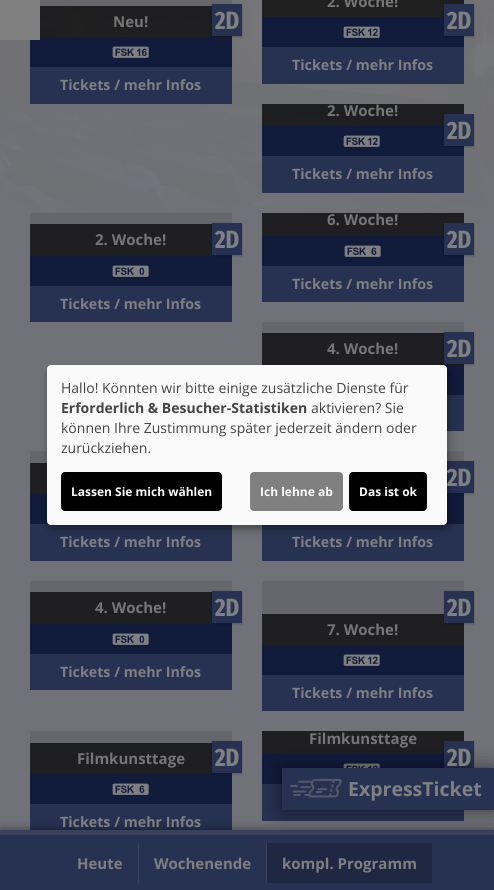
import math
import cairo


def use_color(cr, r, g, b):
  cr.set_source_rgb(r / 255, g / 255, b / 255)

def text(cr, x, y, s, family, size, color, bold=False, italic=False):
  cr.select_font_face(family, cairo.FONT_SLANT_ITALIC if italic else cairo.FONT_SLANT_NORMAL, cairo.FONT_WEIGHT_BOLD if bold else cairo.FONT_WEIGHT_NORMAL)
  cr.set_font_size(size)
  use_color(cr, *color)
  cr.move_to(x, y)
  cr.show_text(s)

def box(cr, x, y, w, h, *color):
  use_color(cr, *color)
  cr.rectangle(x, y, w, h)
  cr.fill()

def round_rect(cr, x, y, w, h, r):
  cr.new_sub_path()
  for i, (u, v) in enumerate([(x + w - r, y + h - r), (x + r, y + h - r), (x + r, y + r), (x + w - r, y + r)]):
    cr.arc(u, v, r, i * math.pi / 2, (i + 1) * math.pi / 2)
  cr.close_path()

def shadow(cr, x, y, w, h, r, blur, alpha):
  cr.push_group_with_content(cairo.CONTENT_ALPHA)
  cr.set_operator(cairo.OPERATOR_SOURCE)
  for i in range(15, -16, -2):
    e = blur * i / 6
    if min(w, h) + 2 * e > 0:
      cr.set_source_rgba(0, 0, 0, alpha * math.erfc((i - 1) / 8.5) / 2)
      round_rect(cr, x - e, y - e, w + 2 * e, h + 2 * e, max(0, min(r + e + blur * .6, min(w, h) / 2 + e)))
      cr.fill()
  cr.mask(cr.pop_group())

def picture(cr, path, x, y, w, h):
  cr.save()
  cr.set_source_surface(cairo.ImageSurface.create_from_png(path), x, y)
  cr.rectangle(x, y, w, h)
  cr.fill()
  cr.restore()

def draw(cr):
  use_color(cr, 112, 114, 120)
  cr.paint()
  picture(cr, "img_01.png", 0, 0, 494, 217)
  box(cr, 30, 37, 202, 30, 17, 27, 60)
  box(cr, 0, 0, 40, 40, 128, 128, 128)
  cr.set_source_rgba(0, 0, 0, 0.1)
  cr.rectangle(40, 0, 192, 37)
  cr.fill()
  cr.set_source_rgba(0, 0, 0, 0.7)
  cr.rectangle(40, 6, 192, 31)
  cr.fill()
  use_color(cr, 0, 0, 0)
  shadow(cr, 212, 5, 30, 32, 0, 1, 0.25)
  box(cr, 212, 4, 30, 32, 39, 50, 82)
  picture(cr, "img_02.png", 112, 46, 37, 12)
  box(cr, 30, 67, 202, 37, 39, 50, 82)
  cr.set_source_rgba(0, 0, 0, 0.1)
  cr.rectangle(262, 0, 202, 17)
  cr.fill()
  cr.set_source_rgba(0, 0, 0, 0.7)
  cr.rectangle(262, 0, 202, 17)
  cr.fill()
  box(cr, 262, 17, 202, 30, 17, 27, 60)
  use_color(cr, 0, 0, 0)
  shadow(cr, 444, 5, 30, 32, 0, 1, 0.25)
  box(cr, 444, 4, 30, 32, 39, 50, 82)
  picture(cr, "img_03.png", 343, 26, 37, 12)
  box(cr, 262, 47, 202, 37, 39, 50, 82)
  cr.set_source_rgba(0, 0, 0, 0.1)
  cr.rectangle(262, 104, 202, 22)
  cr.fill()
  cr.set_source_rgba(0, 0, 0, 0.7)
  cr.rectangle(262, 104, 202, 22)
  cr.fill()
  box(cr, 262, 126, 202, 30, 17, 27, 60)
  use_color(cr, 0, 0, 0)
  shadow(cr, 444, 115, 30, 32, 0, 1, 0.25)
  box(cr, 444, 114, 30, 32, 39, 50, 82)
  picture(cr, "img_03.png", 343, 135, 37, 12)
  box(cr, 262, 156, 202, 37, 39, 50, 82)
  box(cr, 30, 213, 202, 11, 101, 103, 108)
  box(cr, 30, 224, 202, 32, 31, 31, 33)
  box(cr, 30, 256, 202, 30, 17, 27, 60)
  use_color(cr, 0, 0, 0)
  shadow(cr, 212, 224, 30, 32, 0, 1, 0.25)
  box(cr, 212, 223, 30, 32, 39, 50, 82)
  picture(cr, "img_04.png", 112, 265, 37, 12)
  box(cr, 30, 286, 202, 36, 39, 50, 82)
  box(cr, 262, 213, 202, 23, 31, 31, 33)
  box(cr, 262, 236, 202, 30, 17, 27, 60)
  use_color(cr, 0, 0, 0)
  shadow(cr, 444, 224, 30, 32, 0, 1, 0.25)
  box(cr, 444, 223, 30, 32, 39, 50, 82)
  picture(cr, "img_05.png", 344, 245, 37, 12)
  box(cr, 262, 266, 202, 36, 39, 50, 82)
  box(cr, 262, 322, 202, 11, 101, 103, 108)
  box(cr, 262, 333, 202, 32, 31, 31, 33)
  box(cr, 443, 365, 21, 30, 17, 27, 60)
  use_color(cr, 0, 0, 0)
  shadow(cr, 444, 333, 30, 32, 0, 1, 0.25)
  box(cr, 444, 332, 30, 32, 39, 50, 82)
  box(cr, 447, 395, 17, 36, 39, 50, 82)
  box(cr, 30, 451, 17, 12, 101, 103, 108)
  box(cr, 30, 463, 17, 31, 31, 31, 33)
  box(cr, 30, 494, 19, 30, 17, 27, 60)
  box(cr, 30, 524, 202, 37, 39, 50, 82)
  box(cr, 447, 451, 17, 10, 101, 103, 108)
  box(cr, 447, 493, 17, 1, 31, 31, 33)
  box(cr, 445, 494, 19, 30, 17, 27, 60)
  use_color(cr, 0, 0, 0)
  shadow(cr, 444, 462, 30, 32, 0, 1, 0.25)
  box(cr, 447, 461, 27, 32, 39, 50, 82)
  box(cr, 262, 524, 202, 37, 39, 50, 82)
  box(cr, 30, 581, 202, 11, 101, 103, 108)
  box(cr, 30, 592, 202, 32, 31, 31, 33)
  box(cr, 30, 624, 202, 30, 17, 27, 60)
  use_color(cr, 0, 0, 0)
  shadow(cr, 212, 592, 30, 32, 0, 1, 0.25)
  box(cr, 212, 591, 30, 32, 39, 50, 82)
  picture(cr, "img_04.png", 112, 633, 37, 12)
  box(cr, 30, 654, 202, 36, 39, 50, 82)
  box(cr, 262, 581, 202, 33, 101, 103, 108)
  box(cr, 262, 614, 202, 31, 31, 31, 33)
  use_color(cr, 0, 0, 0)
  shadow(cr, 444, 592, 30, 32, 0, 1, 0.25)
  box(cr, 444, 591, 30, 32, 39, 50, 82)
  box(cr, 262, 645, 202, 30, 17, 27, 60)
  picture(cr, "img_03.png", 343, 654, 37, 12)
  box(cr, 262, 675, 202, 36, 39, 50, 82)
  box(cr, 30, 731, 202, 12, 101, 103, 108)
  box(cr, 30, 743, 202, 31, 31, 31, 33)
  box(cr, 30, 774, 202, 30, 17, 27, 60)
  use_color(cr, 0, 0, 0)
  shadow(cr, 212, 742, 30, 32, 0, 1, 0.25)
  box(cr, 212, 741, 30, 32, 39, 50, 82)
  picture(cr, "img_05.png", 112, 783, 37, 12)
  box(cr, 30, 804, 202, 26, 39, 50, 82)
  box(cr, 262, 731, 202, 23, 31, 31, 33)
  box(cr, 262, 754, 182, 30, 17, 27, 60)
  picture(cr, "img_06.png", 343, 763, 37, 5)
  use_color(cr, 0, 0, 0)
  shadow(cr, 444, 742, 30, 32, 0, 1, 0.25)
  box(cr, 444, 741, 30, 27, 39, 50, 82)
  box(cr, 262, 784, 202, 37, 39, 50, 82)
  use_color(cr, 0, 0, 0)
  shadow(cr, 52, 370, 400, 160, 4, 5, 0.19)
  shadow(cr, 47, 369, 400, 160, 4, 3, 0.2)
  shadow(cr, 0, 830, 494, 60, 0, 5, 0.49)
  box(cr, 0, 835, 494, 55, 39, 50, 82)
  box(cr, 0, 830, 494, 5, 57, 65, 91)
  use_color(cr, 0, 0, 0)
  shadow(cr, 282, 768, 212, 42, 0, 10, 0.5)
  box(cr, 282, 768, 212, 42, 39, 50, 82)
  picture(cr, "img_07.png", 290, 778, 52, 20)
  box(cr, 138, 843, 1, 40, 57, 65, 91)
  box(cr, 266, 843, 1, 40, 57, 65, 91)
  box(cr, 267, 843, 165, 40, 31, 40, 66)
  text(cr, 113, 27, "Neu!", "Open Sans", 15, (118, 118, 118), bold=True)
  text(cr, 215, 29, "2D", "Fira Sans Extra Condensed", 25, (128, 128, 128), bold=True)
  text(cr, 60, 90, "Tickets / mehr Infos", "Open Sans", 14.25, (128, 128, 128), bold=True)
  text(cr, 327, 7, "2. Woche!", "Open Sans", 15, (118, 118, 118), bold=True)
  text(cr, 447, 29, "2D", "Fira Sans Extra Condensed", 25, (128, 128, 128), bold=True)
  text(cr, 292, 70, "Tickets / mehr Infos", "Open Sans", 14.25, (128, 128, 128), bold=True)
  text(cr, 327, 116, "2. Woche!", "Open Sans", 15, (118, 118, 118), bold=True)
  text(cr, 447, 139, "2D", "Fira Sans Extra Condensed", 25, (128, 128, 128), bold=True)
  text(cr, 292, 179, "Tickets / mehr Infos", "Open Sans", 14.25, (128, 128, 128), bold=True)
  text(cr, 95, 245, "2. Woche!", "Open Sans", 15, (118, 118, 118), bold=True)
  text(cr, 215, 248, "2D", "Fira Sans Extra Condensed", 25, (128, 128, 128), bold=True)
  text(cr, 60, 309, "Tickets / mehr Infos", "Open Sans", 14.25, (128, 128, 128), bold=True)
  text(cr, 327, 225, "6. Woche!", "Open Sans", 15, (118, 118, 118), bold=True)
  text(cr, 447, 248, "2D", "Fira Sans Extra Condensed", 25, (128, 128, 128), bold=True)
  text(cr, 292, 289, "Tickets / mehr Infos", "Open Sans", 14.25, (128, 128, 128), bold=True)
  text(cr, 327, 354, "4. Woche!", "Open Sans", 15, (118, 118, 118), bold=True)
  text(cr, 447, 357, "2D", "Fira Sans Extra Condensed", 25, (128, 128, 128), bold=True)
  text(cr, 60, 547, "Tickets / mehr Infos", "Open Sans", 14.25, (128, 128, 128), bold=True)
  text(cr, 447, 486, "2D", "Fira Sans Extra Condensed", 25, (128, 128, 128), bold=True)
  text(cr, 292, 547, "Tickets / mehr Infos", "Open Sans", 14.25, (128, 128, 128), bold=True)
  text(cr, 95, 613, "4. Woche!", "Open Sans", 15, (118, 118, 118), bold=True)
  text(cr, 215, 616, "2D", "Fira Sans Extra Condensed", 25, (128, 128, 128), bold=True)
  text(cr, 60, 677, "Tickets / mehr Infos", "Open Sans", 14.25, (128, 128, 128), bold=True)
  text(cr, 447, 616, "2D", "Fira Sans Extra Condensed", 25, (128, 128, 128), bold=True)
  text(cr, 327, 635, "7. Woche!", "Open Sans", 15, (118, 118, 118), bold=True)
  text(cr, 292, 698, "Tickets / mehr Infos", "Open Sans", 14.25, (128, 128, 128), bold=True)
  text(cr, 77, 764, "Filmkunsttage", "Open Sans", 15, (118, 118, 118), bold=True)
  text(cr, 215, 766, "2D", "Fira Sans Extra Condensed", 25, (128, 128, 128), bold=True)
  text(cr, 60, 827, "Tickets / mehr Infos", "Open Sans", 14.25, (128, 128, 128), bold=True)
  text(cr, 309, 744, "Filmkunsttage", "Open Sans", 15, (118, 118, 118), bold=True)
  text(cr, 447, 766, "2D", "Fira Sans Extra Condensed", 25, (128, 128, 128), bold=True)
  use_color(cr, 250, 250, 250)
  round_rect(cr, 47, 365, 400, 160, 4)
  cr.fill()
  text(cr, 61, 393, "Hallo! Könnten wir bitte einige zusätzliche Dienste für", "Open Sans", 14, (68, 68, 68))
  text(cr, 61, 413, "Erforderlich & Besucher-Statistiken", "Open Sans", 14, (68, 68, 68), bold=True)
  text(cr, 311, 413, "aktivieren? Sie", "Open Sans", 14, (68, 68, 68))
  text(cr, 61, 433, "können Ihre Zustimmung später jederzeit ändern oder", "Open Sans", 14, (68, 68, 68))
  text(cr, 61, 453, "zurückziehen.", "Open Sans", 14, (68, 68, 68))
  use_color(cr, 0, 0, 0)
  round_rect(cr, 61, 472, 161, 39, 4)
  cr.fill()
  text(cr, 71, 496, "Lassen Sie mich wählen", "Open Sans", 12, (255, 255, 255), bold=True)
  use_color(cr, 128, 128, 128)
  round_rect(cr, 250, 472, 93, 39, 4)
  cr.fill()
  text(cr, 260, 496, "Ich lehne ab", "Open Sans", 12, (255, 255, 255), bold=True)
  use_color(cr, 0, 0, 0)
  round_rect(cr, 349, 472, 78, 39, 4)
  cr.fill()
  text(cr, 359, 496, "Das ist ok", "Open Sans", 12, (255, 255, 255), bold=True)
  text(cr, 348, 796, "ExpressTicket", "Open Sans", 19.5, (128, 128, 128), bold=True)
  text(cr, 77, 869, "Heute", "Open Sans", 15, (128, 128, 128), bold=True)
  text(cr, 154, 869, "Wochenende", "Open Sans", 15, (128, 128, 128), bold=True)
  text(cr, 282, 869, "kompl. Programm", "Open Sans", 15, (128, 128, 128), bold=True)


surface = cairo.ImageSurface(cairo.FORMAT_RGB24, 494, 890)
cr = cairo.Context(surface)
options = cairo.FontOptions()
options.set_hint_metrics(cairo.HINT_METRICS_OFF)
options.set_hint_style(cairo.HINT_STYLE_NONE)
cr.set_font_options(options)
cr.set_miter_limit(4)
draw(cr)
surface.write_to_png("out.png")
